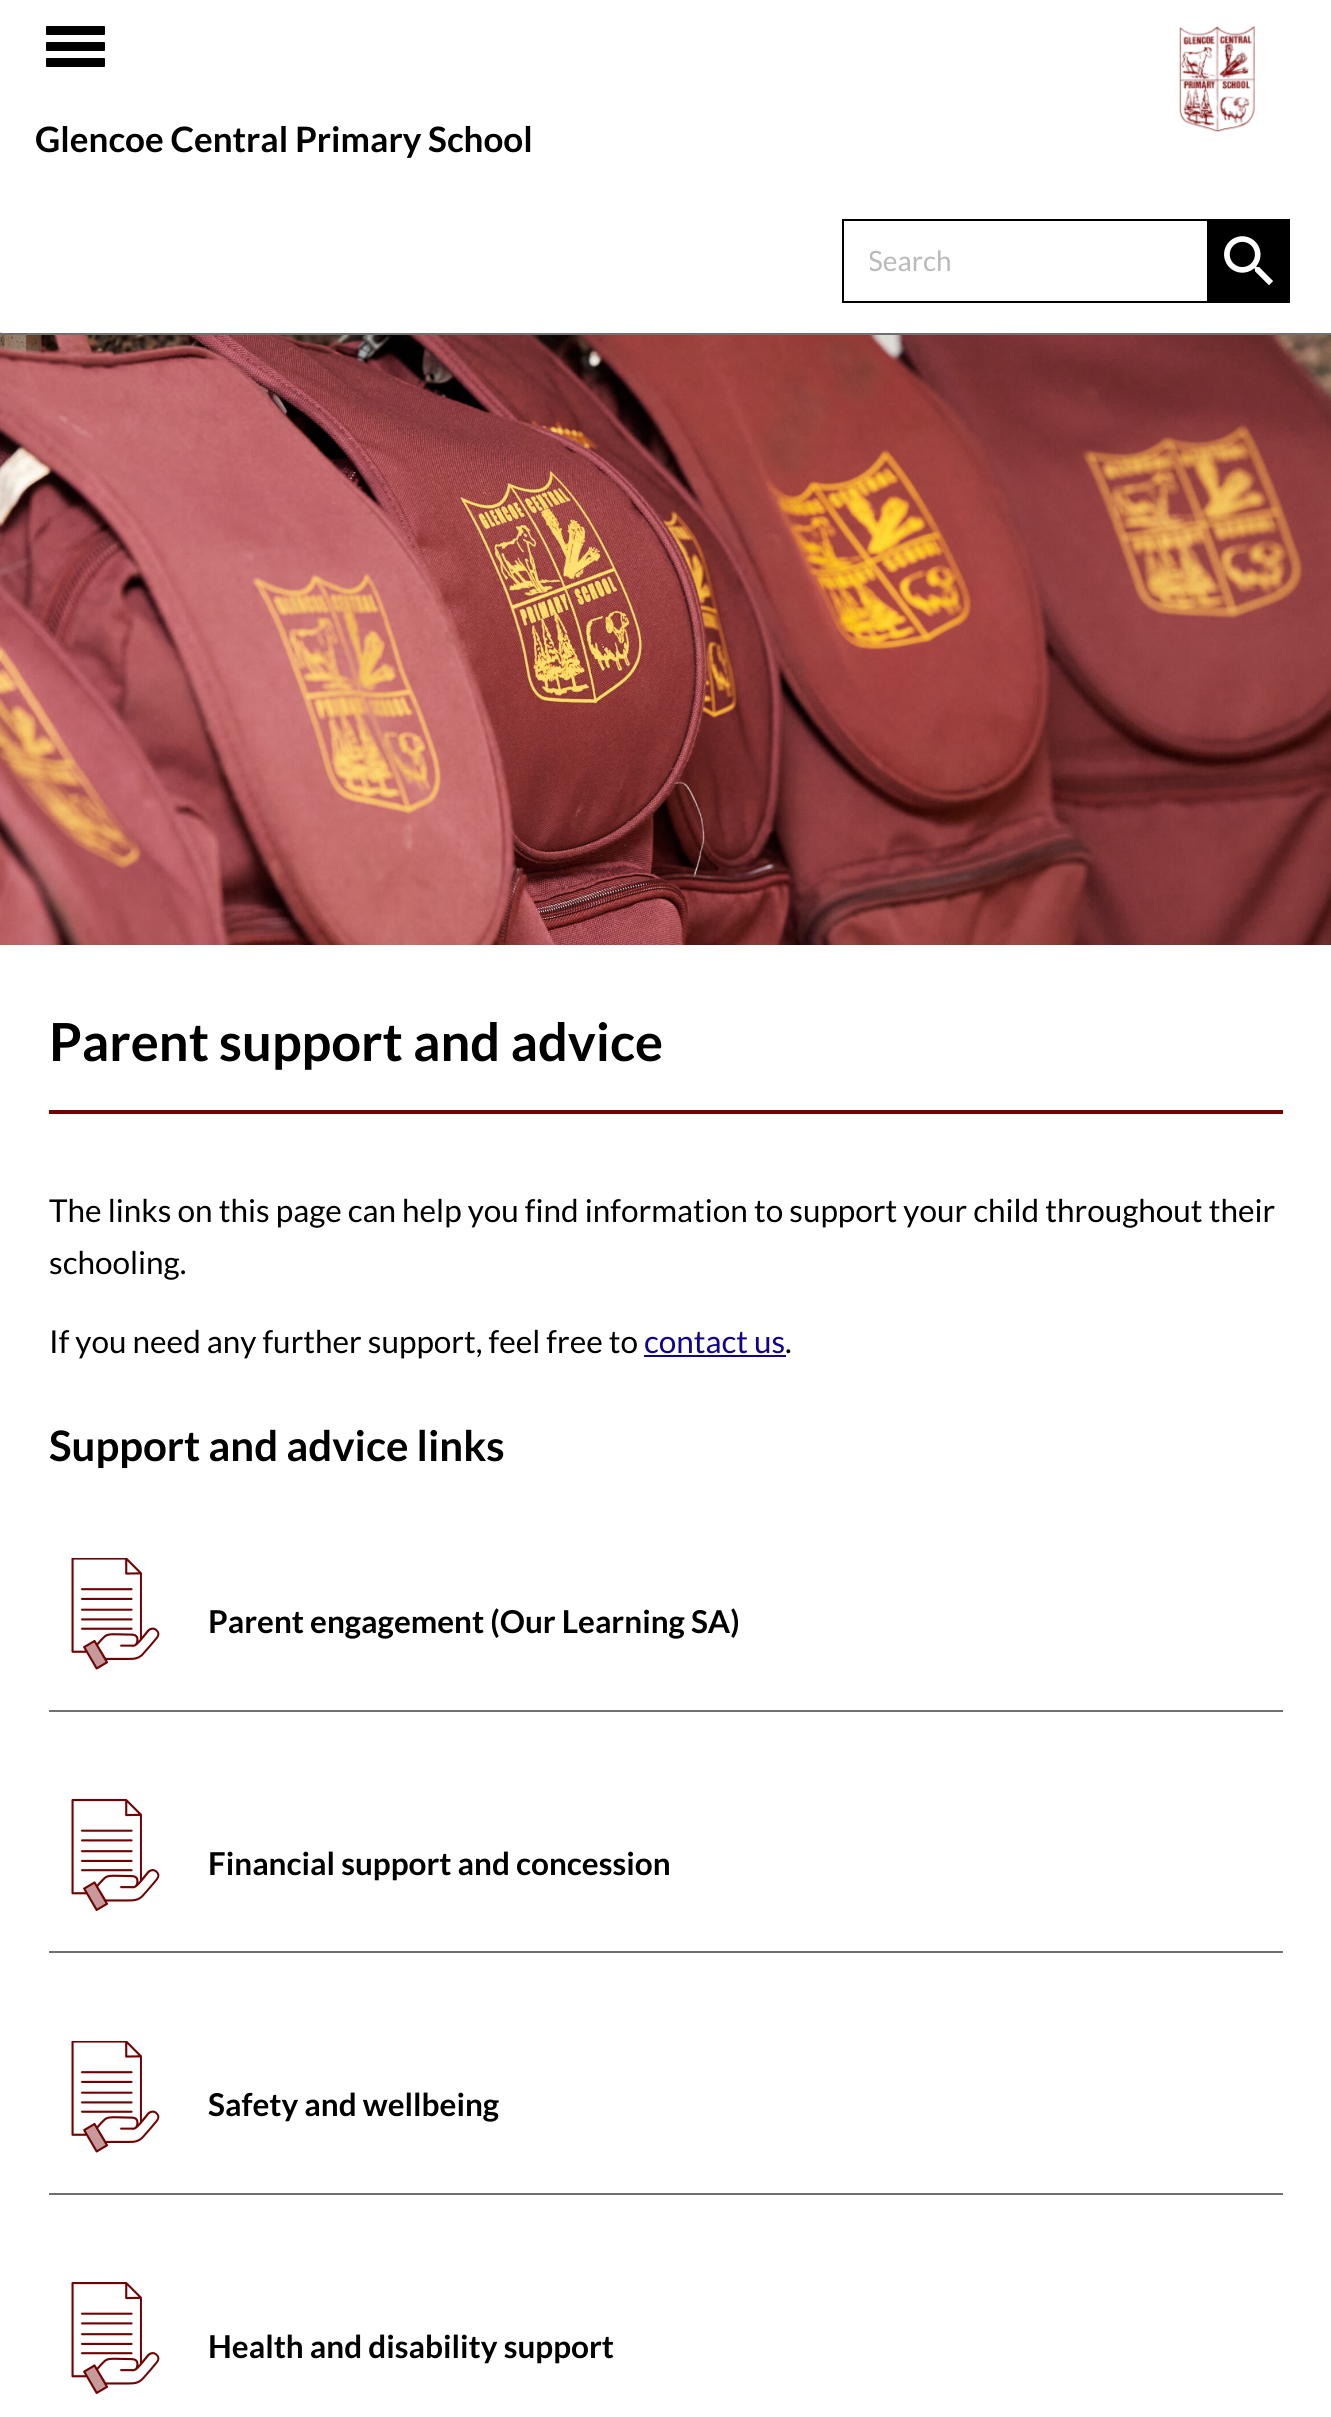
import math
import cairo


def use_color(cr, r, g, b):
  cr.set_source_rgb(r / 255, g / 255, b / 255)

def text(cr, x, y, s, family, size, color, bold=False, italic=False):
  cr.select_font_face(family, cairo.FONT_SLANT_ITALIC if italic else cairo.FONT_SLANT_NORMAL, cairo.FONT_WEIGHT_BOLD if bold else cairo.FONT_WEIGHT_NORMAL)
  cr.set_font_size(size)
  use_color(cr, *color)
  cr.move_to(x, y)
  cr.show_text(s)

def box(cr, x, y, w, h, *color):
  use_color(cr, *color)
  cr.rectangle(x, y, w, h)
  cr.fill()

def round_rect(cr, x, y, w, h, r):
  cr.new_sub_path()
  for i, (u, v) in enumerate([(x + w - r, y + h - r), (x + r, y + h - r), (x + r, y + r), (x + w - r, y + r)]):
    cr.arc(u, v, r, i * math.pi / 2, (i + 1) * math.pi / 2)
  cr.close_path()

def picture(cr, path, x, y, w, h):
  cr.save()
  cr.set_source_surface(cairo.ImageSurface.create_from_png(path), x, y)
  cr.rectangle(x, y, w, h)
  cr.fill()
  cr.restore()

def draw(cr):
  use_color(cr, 255, 255, 255)
  cr.paint()
  picture(cr, "img_03.png", 0, 332, 1331, 613)
  box(cr, 2, 333, 1329, 2, 112, 112, 112)
  use_color(cr, 0, 0, 0)
  round_rect(cr, 46, 26, 59, 9, 1)
  cr.fill()
  round_rect(cr, 46, 42, 59, 9, 1)
  cr.fill()
  round_rect(cr, 46, 58, 59, 9, 1)
  cr.fill()
  picture(cr, "img_01.png", 1179, 26, 76, 106)
  cr.rectangle(843, 220, 365, 82)
  cr.stroke()
  box(cr, 1209, 219, 81, 84, 0, 0, 0)
  picture(cr, "img_02.png", 1224, 236, 49, 50)
  box(cr, 2, 332, 1329, 1, 255, 255, 255)
  box(cr, 49, 1110, 1234, 4, 112, 2, 3)
  box(cr, 644, 1355, 142, 2, 16, 2, 145)
  box(cr, 49, 1710, 1234, 2, 112, 112, 112)
  picture(cr, "img_04.png", 71, 1558, 89, 112)
  box(cr, 49, 1951, 1234, 2, 112, 112, 112)
  picture(cr, "img_05.png", 71, 1799, 89, 112)
  box(cr, 49, 2193, 1234, 2, 112, 112, 112)
  picture(cr, "img_04.png", 71, 2041, 89, 112)
  picture(cr, "img_05.png", 71, 2282, 89, 112)
  text(cr, 35, 152, "Glencoe Central Primary School", "Lato", 35, (0, 0, 0), bold=True)
  cr.save()
  cr.rectangle(870, 243, 311, 34)
  cr.clip()
  text(cr, 868, 271, "Search", "Lato", 28, (186, 186, 186))
  cr.restore()
  text(cr, 49, 1061, "Parent support and advice", "Lato", 52.5, (0, 0, 0), bold=True)
  text(cr, 49, 1222, "The links on this page can help you find information to support your child throughout their", "Lato", 31.5, (0, 0, 0))
  text(cr, 49, 1274, "schooling.", "Lato", 31.5, (0, 0, 0))
  text(cr, 49, 1353, "If you need any further support, feel free to", "Lato", 31.5, (0, 0, 0))
  text(cr, 644, 1353, "contact us", "Lato", 31.5, (16, 2, 145))
  text(cr, 785, 1353, ".", "Lato", 31.5, (0, 0, 0))
  text(cr, 49, 1461, "Support and advice links", "Lato", 42, (0, 0, 0), bold=True)
  text(cr, 208, 1633, "Parent engagement (Our Learning SA)", "Lato", 31.5, (0, 0, 0), bold=True)
  text(cr, 208, 1875, "Financial support and concession", "Lato", 31.5, (0, 0, 0), bold=True)
  text(cr, 208, 2116, "Safety and wellbeing", "Lato", 31.5, (0, 0, 0), bold=True)
  text(cr, 208, 2358, "Health and disability support", "Lato", 31.5, (0, 0, 0), bold=True)


surface = cairo.ImageSurface(cairo.FORMAT_RGB24, 1331, 2417)
cr = cairo.Context(surface)
options = cairo.FontOptions()
options.set_hint_metrics(cairo.HINT_METRICS_OFF)
options.set_hint_style(cairo.HINT_STYLE_NONE)
cr.set_font_options(options)
cr.set_miter_limit(4)
draw(cr)
surface.write_to_png("out.png")
